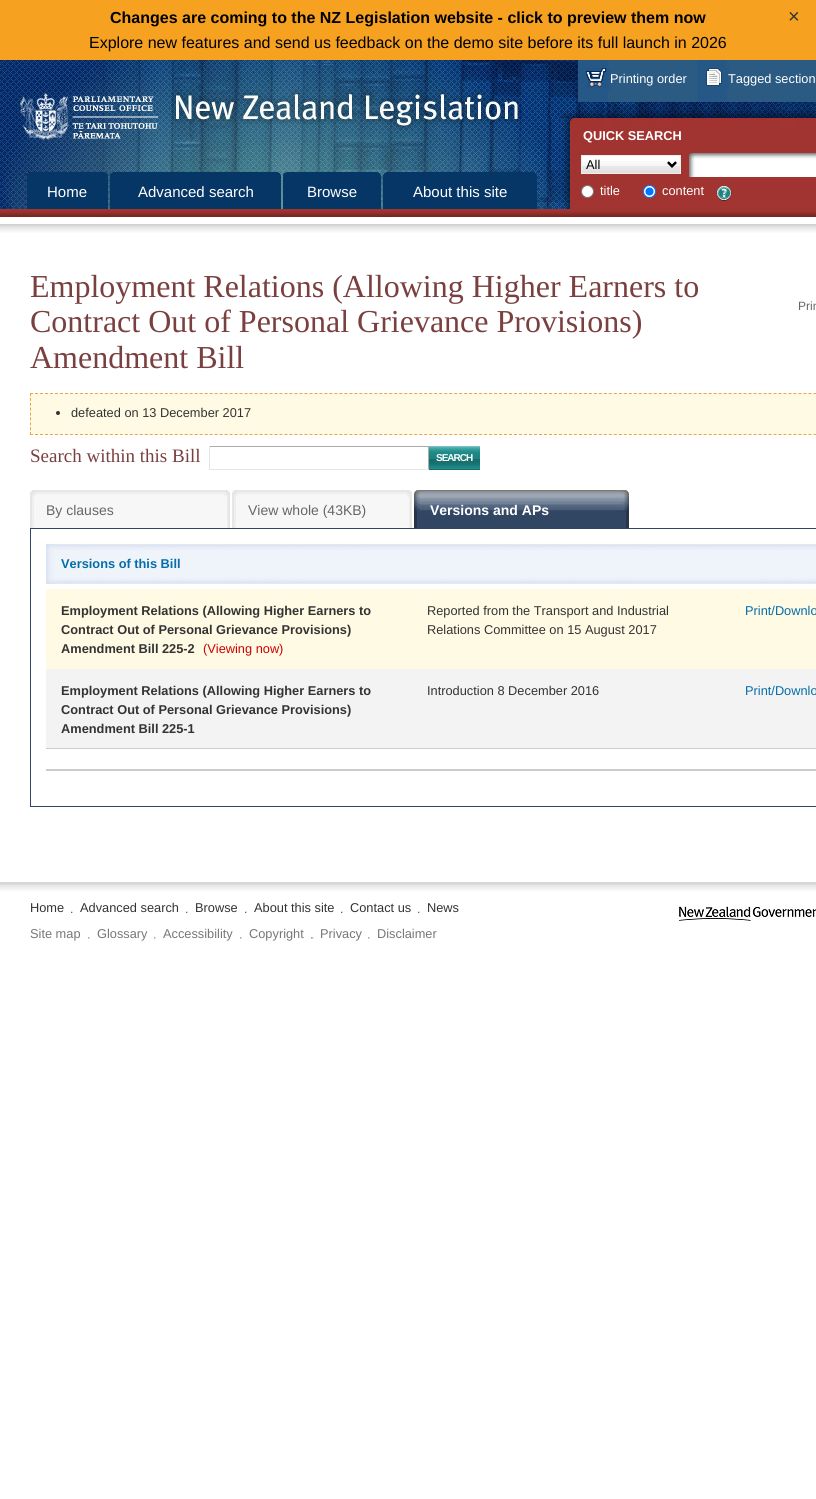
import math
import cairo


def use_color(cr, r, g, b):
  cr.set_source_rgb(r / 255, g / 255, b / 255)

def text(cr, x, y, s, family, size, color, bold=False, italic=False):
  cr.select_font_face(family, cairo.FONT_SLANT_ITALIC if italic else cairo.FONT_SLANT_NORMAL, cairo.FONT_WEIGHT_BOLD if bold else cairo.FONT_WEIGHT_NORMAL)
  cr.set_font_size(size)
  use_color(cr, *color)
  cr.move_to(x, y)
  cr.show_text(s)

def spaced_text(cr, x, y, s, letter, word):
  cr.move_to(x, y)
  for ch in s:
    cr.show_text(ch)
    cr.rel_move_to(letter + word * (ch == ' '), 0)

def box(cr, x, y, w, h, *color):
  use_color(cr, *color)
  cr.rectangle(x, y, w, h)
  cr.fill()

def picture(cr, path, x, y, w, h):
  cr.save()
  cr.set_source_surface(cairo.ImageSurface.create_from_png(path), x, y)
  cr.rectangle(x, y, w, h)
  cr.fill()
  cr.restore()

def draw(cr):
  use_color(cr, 255, 255, 255)
  cr.paint()
  box(cr, 0, 0, 816, 60, 246, 161, 32)
  picture(cr, "img_01.png", 0, 224, 816, 9)
  picture(cr, "img_02.png", 0, 60, 816, 149)
  box(cr, 608, 60, 89, 42, 43, 90, 130)
  box(cr, 578, 60, 30, 42, 37, 88, 135)
  picture(cr, "img_03.png", 586, 68, 25, 22)
  box(cr, 727, 60, 89, 42, 43, 90, 130)
  box(cr, 697, 60, 30, 42, 37, 88, 135)
  picture(cr, "img_04.png", 706, 68, 23, 22)
  picture(cr, "img_14.png", 0, 209, 816, 8)
  picture(cr, "img_05.png", 27, 172, 81, 45)
  picture(cr, "img_06.png", 110, 172, 171, 45)
  picture(cr, "img_07.png", 283, 172, 98, 45)
  picture(cr, "img_08.png", 383, 172, 154, 45)
  picture(cr, "img_09.png", 563, 118, 253, 91)
  box(cr, 582, 156, 98, 5, 255, 255, 255)
  picture(cr, "img_10.png", 582, 161, 98, 12)
  cr.rectangle(581.5, 155.5, 99, 18)
  use_color(cr, 238, 238, 238)
  cr.set_line_width(1)
  cr.stroke()
  cr.new_path()
  cr.move_to(668, 162.5)
  cr.line_to(672, 166.5)
  cr.line_to(676, 162.5)
  use_color(cr, 0, 0, 0)
  cr.set_line_width(2)
  cr.stroke()
  picture(cr, "img_11.png", 689, 153, 127, 24)
  use_color(cr, 255, 255, 255)
  cr.arc(587.5, 191.5, 6, 0, 2 * math.pi)
  cr.fill_preserve()
  use_color(cr, 118, 118, 118)
  cr.set_line_width(1)
  cr.stroke()
  use_color(cr, 255, 255, 255)
  cr.arc(649.5, 191.5, 6, 0, 2 * math.pi)
  cr.fill_preserve()
  use_color(cr, 0, 117, 255)
  cr.stroke()
  cr.arc(649.5, 191.5, 4, 0, 2 * math.pi)
  cr.fill()
  picture(cr, "img_12.png", 712, 185, 20, 20)
  picture(cr, "img_13.png", 179, 93, 243, 22)
  box(cr, 30, 393, 786, 42, 254, 250, 228)
  cr.new_path()
  cr.move_to(30, 393.5)
  cr.line_to(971, 393.5)
  use_color(cr, 242, 162, 76)
  cr.set_dash([3, 1.99])
  cr.stroke()
  cr.new_path()
  cr.move_to(30, 434.5)
  cr.line_to(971, 434.5)
  cr.stroke()
  cr.new_path()
  cr.move_to(30.5, 393)
  cr.line_to(30.5, 435)
  cr.set_dash([3, 1.88])
  cr.stroke()
  use_color(cr, 51, 51, 51)
  cr.arc(58, 413, 2, 0, 2 * math.pi)
  cr.fill()
  box(cr, 209, 446, 220, 1, 173, 172, 172)
  box(cr, 428, 446, 1, 24, 173, 172, 172)
  box(cr, 209, 469, 220, 1, 230, 230, 230)
  box(cr, 209, 446, 1, 24, 230, 230, 230)
  picture(cr, "img_15.png", 429, 446, 51, 24)
  picture(cr, "img_16.png", 30, 490, 200, 38)
  picture(cr, "img_17.png", 232, 490, 180, 38)
  picture(cr, "img_18.png", 414, 490, 215, 38)
  cr.rectangle(30.5, 528.5, 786, 278)
  use_color(cr, 49, 70, 100)
  cr.set_dash([])
  cr.stroke()
  picture(cr, "img_19.png", 46, 544, 770, 40)
  box(cr, 46, 589, 770, 80, 254, 250, 228)
  box(cr, 46, 669, 770, 79, 243, 243, 243)
  box(cr, 46, 748, 770, 1, 204, 204, 204)
  box(cr, 46, 769, 770, 2, 204, 204, 204)
  picture(cr, "img_20.png", 0, 882, 816, 9)
  picture(cr, "img_21.png", 71, 911, 2, 2)
  picture(cr, "img_21.png", 186, 911, 2, 2)
  picture(cr, "img_21.png", 245, 911, 2, 2)
  picture(cr, "img_21.png", 341, 911, 2, 2)
  picture(cr, "img_21.png", 418, 911, 2, 2)
  picture(cr, "img_22.png", 679, 906, 137, 15)
  picture(cr, "img_23.png", 88, 937, 2, 2)
  picture(cr, "img_23.png", 154, 937, 2, 2)
  picture(cr, "img_23.png", 240, 937, 2, 2)
  picture(cr, "img_24.png", 311, 937, 3, 2)
  picture(cr, "img_23.png", 368, 937, 2, 2)
  text(cr, 110, 23, "Changes are coming to the NZ Legislation website - click to preview them now", "Liberation Sans", 16, (0, 0, 0), bold=True)
  text(cr, 788, 23, "×", "Liberation Sans", 20, (51, 51, 51))
  text(cr, 89, 48, "Explore new features and send us feedback on the demo site before its full launch in 2026", "Liberation Sans", 16, (0, 0, 0))
  text(cr, 610, 83, "Printing order", "Liberation Sans", 12.8, (255, 255, 255))
  text(cr, 728, 83, "Tagged section", "Liberation Sans", 12.8, (255, 255, 255))
  text(cr, 47, 197, "Home", "Liberation Sans", 15, (255, 255, 255))
  text(cr, 138, 197, "Advanced search", "Liberation Sans", 15, (255, 255, 255))
  text(cr, 307, 197, "Browse", "Liberation Sans", 15, (255, 255, 255))
  text(cr, 413, 197, "About this site", "Liberation Sans", 15, (255, 255, 255))
  text(cr, 583, 140, "QUICK SEARCH", "Liberation Sans", 12.8, (255, 255, 255), bold=True)
  text(cr, 586, 169, "All", "Liberation Sans", 12.8, (0, 0, 0))
  text(cr, 600, 195, "title", "Liberation Sans", 12.8, (255, 255, 255))
  text(cr, 662, 195, "content", "Liberation Sans", 12.8, (255, 255, 255))
  text(cr, 30, 297, "Employment Relations (Allowing Higher Earners to", "Liberation Serif", 32, (122, 63, 63))
  text(cr, 30, 332, "Contract Out of Personal Grievance Provisions)", "Liberation Serif", 32, (122, 63, 63))
  text(cr, 30, 368, "Amendment Bill", "Liberation Serif", 32, (122, 63, 63))
  text(cr, 71, 417, "defeated on 13 December 2017", "Liberation Sans", 12.8, (51, 51, 51))
  text(cr, 30, 462, "Search within this Bill", "Liberation Serif", 19, (122, 63, 63))
  cr.select_font_face("Liberation Sans", cairo.FONT_SLANT_NORMAL, cairo.FONT_WEIGHT_BOLD)
  cr.set_font_size(10)
  use_color(cr, 255, 255, 255)
  spaced_text(cr, 436, 461, "SEARCH", -1, 0)
  text(cr, 46, 515, "By clauses", "Liberation Sans", 14, (102, 102, 102))
  text(cr, 248, 515, "View whole (43KB)", "Liberation Sans", 14, (102, 102, 102))
  text(cr, 430, 515, "Versions and APs", "Liberation Sans", 14, (255, 255, 255), bold=True)
  text(cr, 798, 310, "Prin", "Liberation Sans", 12, (102, 102, 102))
  text(cr, 61, 568, "Versions of this Bill", "Liberation Sans", 12.8, (5, 109, 169), bold=True)
  text(cr, 61, 615, "Employment Relations (Allowing Higher Earners to", "Liberation Sans", 12.8, (51, 51, 51), bold=True)
  text(cr, 61, 634, "Contract Out of Personal Grievance Provisions)", "Liberation Sans", 12.8, (51, 51, 51), bold=True)
  text(cr, 61, 653, "Amendment Bill 225-2", "Liberation Sans", 12.8, (51, 51, 51), bold=True)
  text(cr, 203, 653, "(Viewing now)", "Liberation Sans", 12.8, (204, 0, 0))
  text(cr, 427, 615, "Reported from the Transport and Industrial", "Liberation Sans", 12.8, (51, 51, 51))
  text(cr, 427, 634, "Relations Committee on 15 August 2017", "Liberation Sans", 12.8, (51, 51, 51))
  text(cr, 745, 615, "Print/Downlo", "Liberation Sans", 12.8, (5, 109, 169))
  text(cr, 61, 695, "Employment Relations (Allowing Higher Earners to", "Liberation Sans", 12.8, (51, 51, 51), bold=True)
  text(cr, 61, 714, "Contract Out of Personal Grievance Provisions)", "Liberation Sans", 12.8, (51, 51, 51), bold=True)
  text(cr, 61, 733, "Amendment Bill 225-1", "Liberation Sans", 12.8, (51, 51, 51), bold=True)
  text(cr, 427, 695, "Introduction 8 December 2016", "Liberation Sans", 12.8, (51, 51, 51))
  text(cr, 745, 695, "Print/Downlo", "Liberation Sans", 12.8, (5, 109, 169))
  text(cr, 30, 912, "Home", "Liberation Sans", 12.8, (51, 51, 51))
  text(cr, 80, 912, "Advanced search", "Liberation Sans", 12.8, (51, 51, 51))
  text(cr, 195, 912, "Browse", "Liberation Sans", 12.8, (51, 51, 51))
  text(cr, 254, 912, "About this site", "Liberation Sans", 12.8, (51, 51, 51))
  text(cr, 350, 912, "Contact us", "Liberation Sans", 12.8, (51, 51, 51))
  text(cr, 427, 912, "News", "Liberation Sans", 12.8, (51, 51, 51))
  text(cr, 30, 938, "Site map", "Liberation Sans", 12.8, (120, 118, 118))
  text(cr, 97, 938, "Glossary", "Liberation Sans", 12.8, (120, 118, 118))
  text(cr, 163, 938, "Accessibility", "Liberation Sans", 12.8, (120, 118, 118))
  text(cr, 249, 938, "Copyright", "Liberation Sans", 12.8, (120, 118, 118))
  text(cr, 320, 938, "Privacy", "Liberation Sans", 12.8, (120, 118, 118))
  text(cr, 377, 938, "Disclaimer", "Liberation Sans", 12.8, (120, 118, 118))


surface = cairo.ImageSurface(cairo.FORMAT_RGB24, 816, 1499)
cr = cairo.Context(surface)
options = cairo.FontOptions()
options.set_hint_metrics(cairo.HINT_METRICS_OFF)
options.set_hint_style(cairo.HINT_STYLE_NONE)
cr.set_font_options(options)
cr.set_miter_limit(4)
draw(cr)
surface.write_to_png("out.png")
